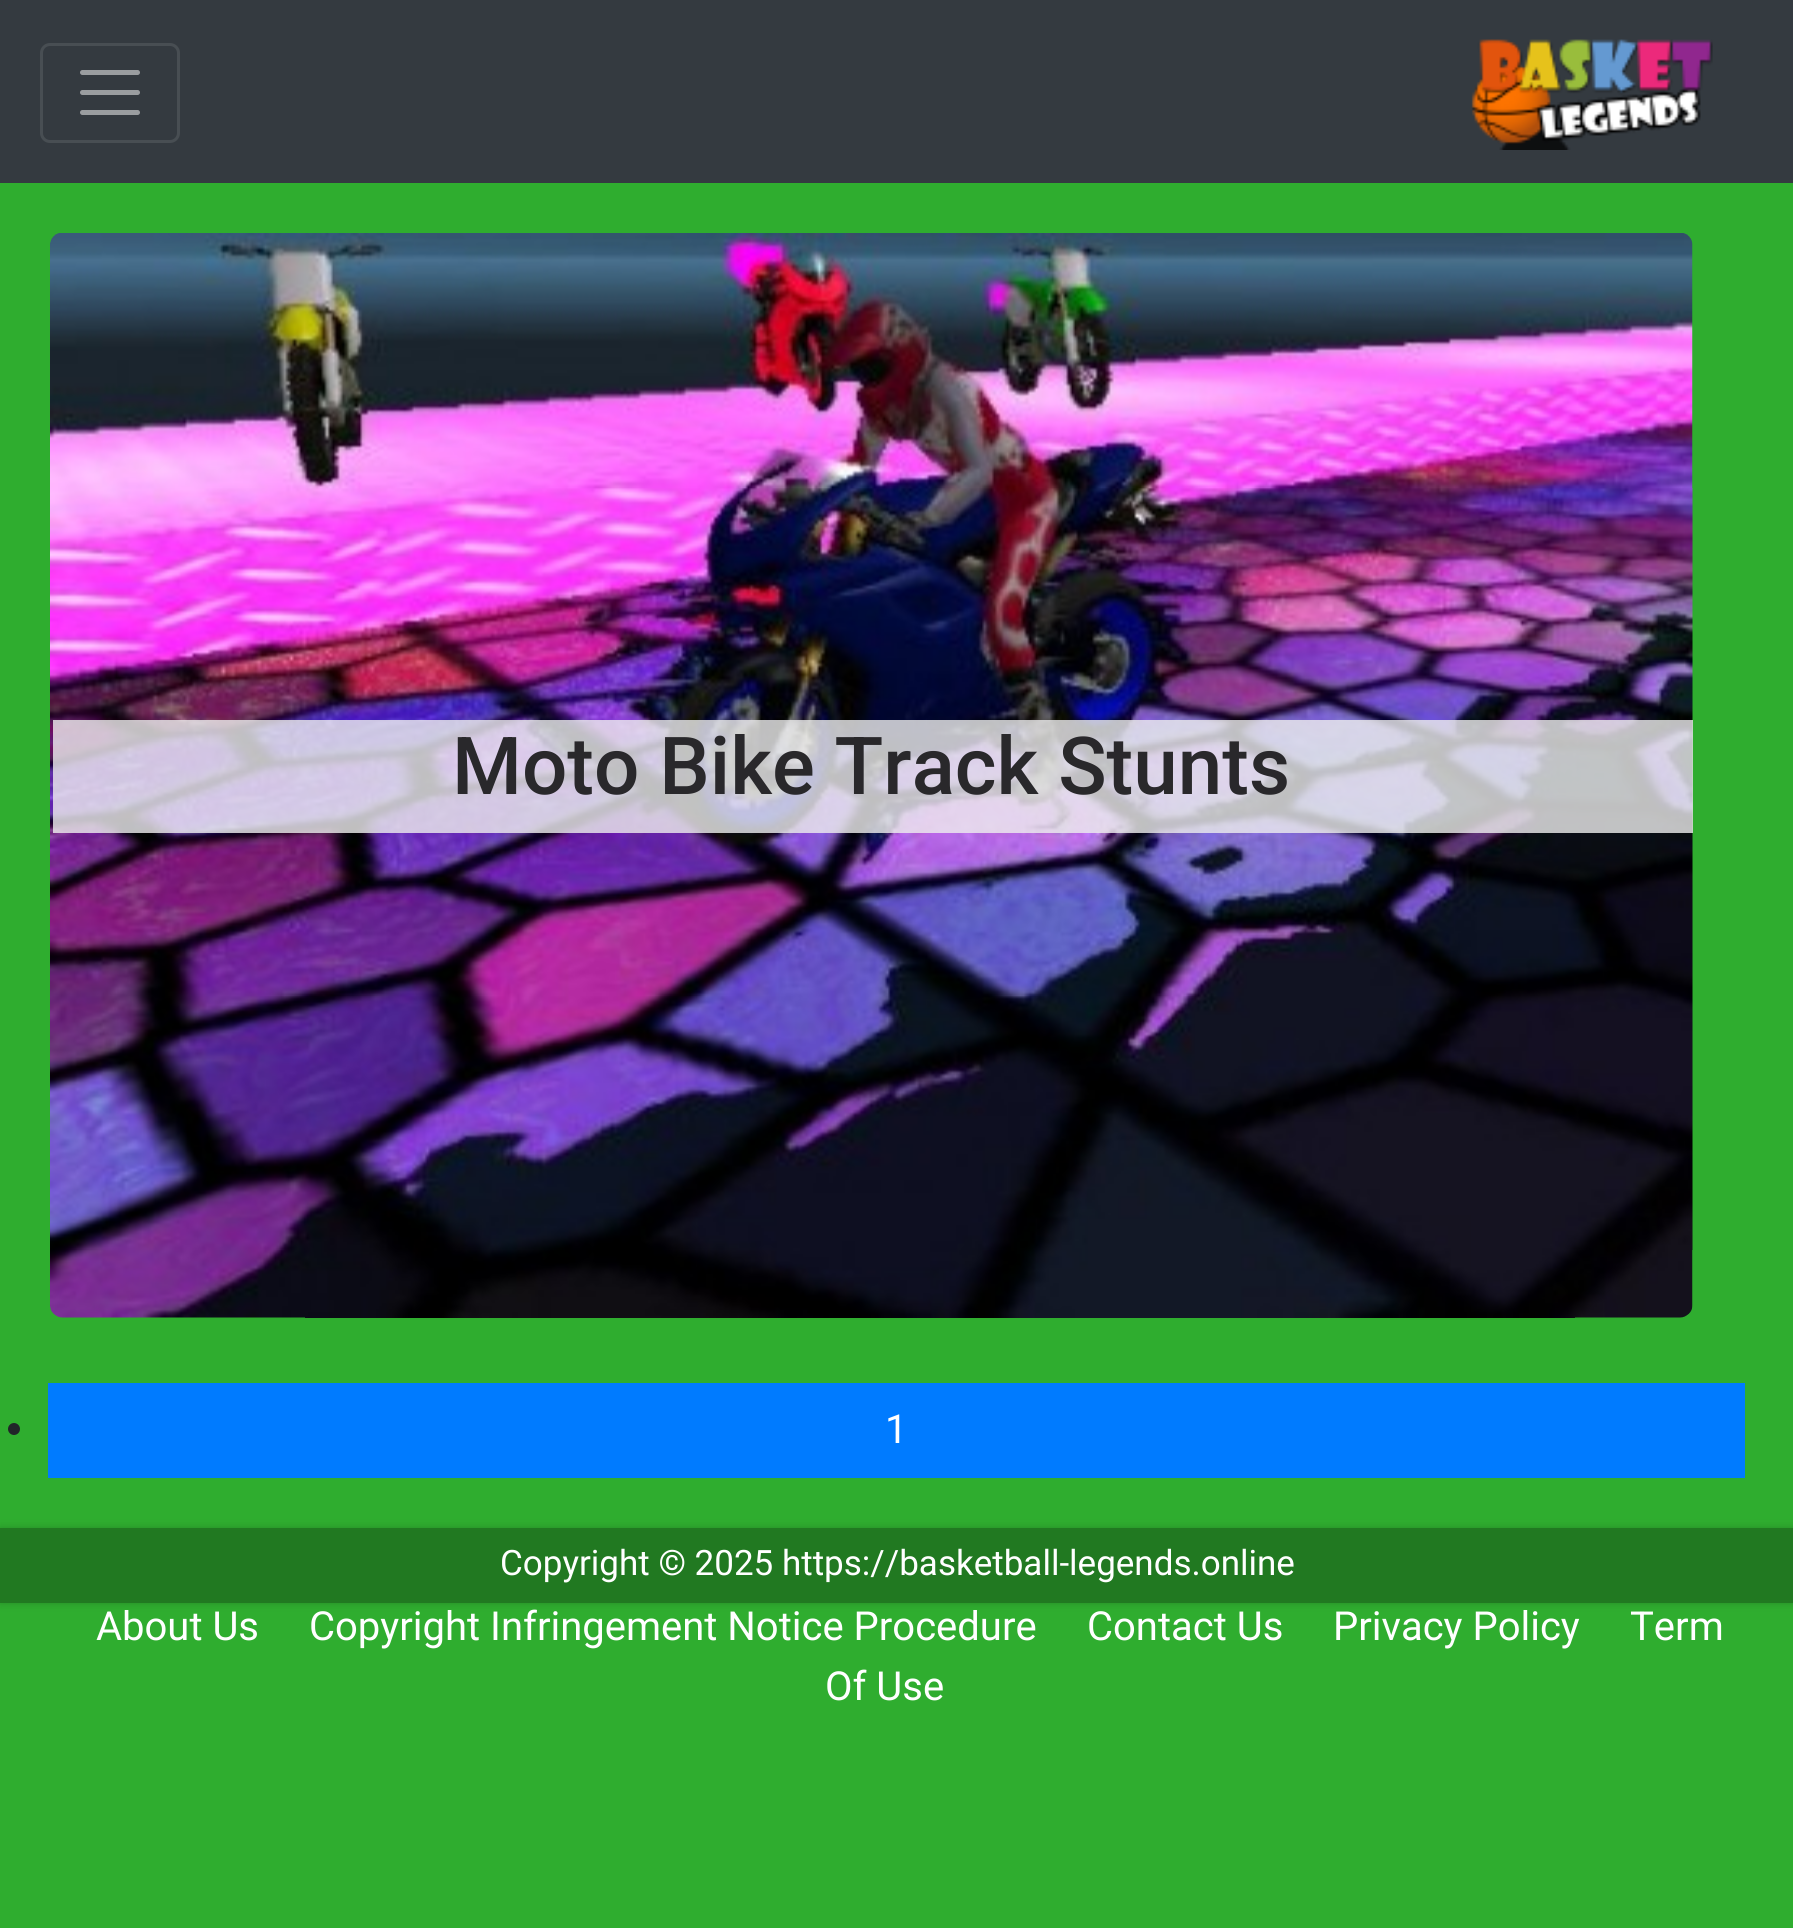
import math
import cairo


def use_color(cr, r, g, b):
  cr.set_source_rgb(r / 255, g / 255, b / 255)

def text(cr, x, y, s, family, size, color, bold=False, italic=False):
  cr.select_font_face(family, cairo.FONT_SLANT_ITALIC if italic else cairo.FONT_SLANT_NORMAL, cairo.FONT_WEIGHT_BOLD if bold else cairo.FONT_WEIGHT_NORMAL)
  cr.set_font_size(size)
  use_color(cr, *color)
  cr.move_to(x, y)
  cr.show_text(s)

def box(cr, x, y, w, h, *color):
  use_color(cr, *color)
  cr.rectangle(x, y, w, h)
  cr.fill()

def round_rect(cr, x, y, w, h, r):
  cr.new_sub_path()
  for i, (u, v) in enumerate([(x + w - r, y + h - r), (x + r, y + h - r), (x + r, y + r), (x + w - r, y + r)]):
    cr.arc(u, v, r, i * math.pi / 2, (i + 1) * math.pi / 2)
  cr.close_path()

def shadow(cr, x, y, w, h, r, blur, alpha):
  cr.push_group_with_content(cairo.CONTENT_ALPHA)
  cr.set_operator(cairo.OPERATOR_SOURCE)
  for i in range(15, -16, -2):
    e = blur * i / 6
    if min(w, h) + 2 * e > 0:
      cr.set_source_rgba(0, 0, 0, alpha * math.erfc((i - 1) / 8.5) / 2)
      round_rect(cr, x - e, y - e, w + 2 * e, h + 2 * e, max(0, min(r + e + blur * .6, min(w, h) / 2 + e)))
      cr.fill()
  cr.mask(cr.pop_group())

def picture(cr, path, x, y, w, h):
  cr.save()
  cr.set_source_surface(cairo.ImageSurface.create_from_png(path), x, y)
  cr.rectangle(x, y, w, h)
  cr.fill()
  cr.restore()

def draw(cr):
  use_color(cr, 47, 173, 47)
  cr.paint()
  box(cr, 0, 0, 1793, 183, 52, 58, 64)
  round_rect(cr, 41.5, 44.5, 137, 97, 8.5)
  use_color(cr, 72, 78, 83)
  cr.set_line_width(3)
  cr.stroke()
  cr.new_path()
  cr.move_to(82.5, 72.5)
  cr.line_to(137.5, 72.5)
  cr.move_to(82.5, 92.5)
  cr.line_to(137.5, 92.5)
  cr.move_to(82.5, 112.5)
  cr.line_to(137.5, 112.5)
  use_color(cr, 154, 157, 160)
  cr.set_line_width(5)
  cr.set_line_cap(cairo.LINE_CAP_ROUND)
  cr.stroke()
  picture(cr, "img_01.png", 1471, 39, 242, 111)
  picture(cr, "img_02.png", 50, 233, 1643, 1085)
  cr.set_source_rgba(0.937, 0.937, 0.937, 0.8)
  cr.rectangle(53, 720, 1640, 113)
  cr.fill()
  use_color(cr, 33, 37, 41)
  cr.arc(14, 1429, 6, 0, 2 * math.pi)
  cr.fill()
  box(cr, 48, 1383, 1697, 95, 0, 123, 255)
  cr.save()
  cr.set_fill_rule(cairo.FILL_RULE_EVEN_ODD)
  cr.new_path()
  cr.move_to(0, 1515)
  cr.line_to(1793, 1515)
  cr.line_to(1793, 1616)
  cr.line_to(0, 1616)
  cr.close_path()
  cr.move_to(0, 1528)
  cr.line_to(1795, 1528)
  cr.line_to(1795, 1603)
  cr.line_to(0, 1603)
  cr.close_path()
  cr.clip()
  use_color(cr, 0, 0, 0)
  shadow(cr, 0, 1528, 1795, 75, 0, 4, 0.2)
  cr.restore()
  cr.set_source_rgba(0, 0, 0, 0.3)
  cr.rectangle(0, 1528, 1793, 75)
  cr.fill()
  text(cr, 452, 794, "Moto Bike Track Stunts", "Roboto Medium", 80, (41, 40, 43))
  text(cr, 885, 1443, "1", "Roboto", 40, (255, 255, 255))
  text(cr, 500, 1575, "Copyright © 2025 https://basketball-legends.online", "Roboto", 35, (255, 255, 255))
  text(cr, 96, 1640, "About Us", "Roboto", 40, (255, 255, 255))
  text(cr, 309, 1640, "Copyright Infringement Notice Procedure", "Roboto", 40, (255, 255, 255))
  text(cr, 1087, 1640, "Contact Us", "Roboto", 40, (255, 255, 255))
  text(cr, 1333, 1640, "Privacy Policy", "Roboto", 40, (255, 255, 255))
  text(cr, 1630, 1640, "Term", "Roboto", 40, (255, 255, 255))
  text(cr, 825, 1700, "Of Use", "Roboto", 40, (255, 255, 255))


surface = cairo.ImageSurface(cairo.FORMAT_RGB24, 1793, 1928)
cr = cairo.Context(surface)
options = cairo.FontOptions()
options.set_hint_metrics(cairo.HINT_METRICS_OFF)
options.set_hint_style(cairo.HINT_STYLE_NONE)
cr.set_font_options(options)
cr.set_miter_limit(4)
draw(cr)
surface.write_to_png("out.png")
